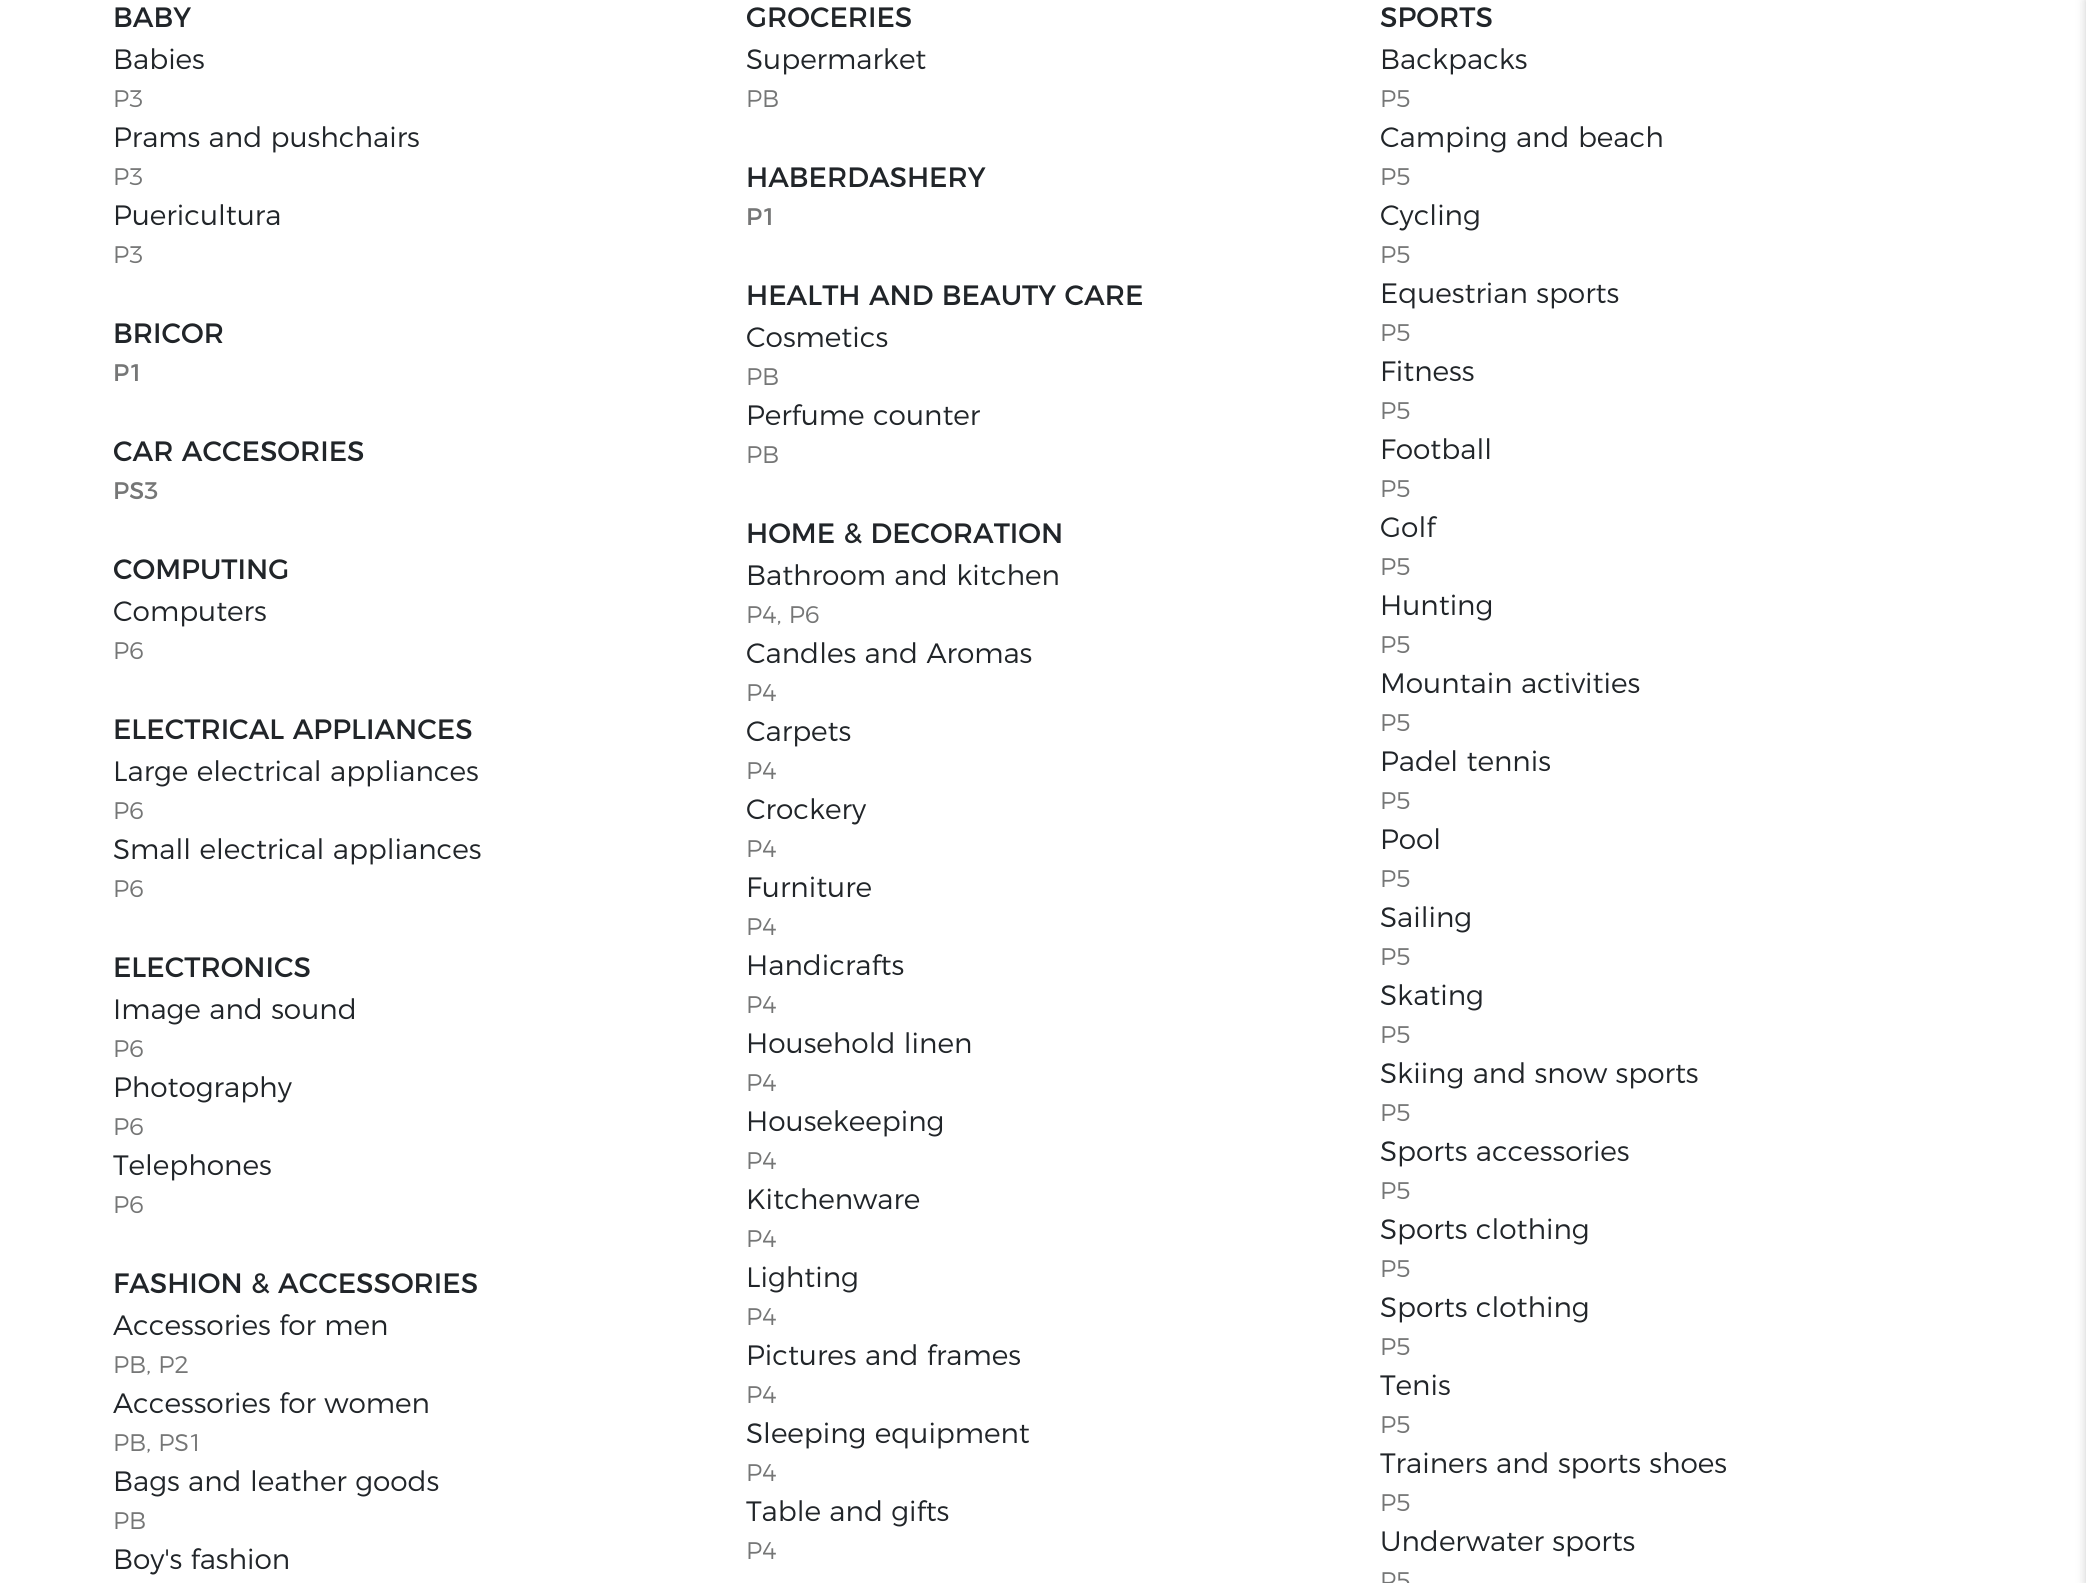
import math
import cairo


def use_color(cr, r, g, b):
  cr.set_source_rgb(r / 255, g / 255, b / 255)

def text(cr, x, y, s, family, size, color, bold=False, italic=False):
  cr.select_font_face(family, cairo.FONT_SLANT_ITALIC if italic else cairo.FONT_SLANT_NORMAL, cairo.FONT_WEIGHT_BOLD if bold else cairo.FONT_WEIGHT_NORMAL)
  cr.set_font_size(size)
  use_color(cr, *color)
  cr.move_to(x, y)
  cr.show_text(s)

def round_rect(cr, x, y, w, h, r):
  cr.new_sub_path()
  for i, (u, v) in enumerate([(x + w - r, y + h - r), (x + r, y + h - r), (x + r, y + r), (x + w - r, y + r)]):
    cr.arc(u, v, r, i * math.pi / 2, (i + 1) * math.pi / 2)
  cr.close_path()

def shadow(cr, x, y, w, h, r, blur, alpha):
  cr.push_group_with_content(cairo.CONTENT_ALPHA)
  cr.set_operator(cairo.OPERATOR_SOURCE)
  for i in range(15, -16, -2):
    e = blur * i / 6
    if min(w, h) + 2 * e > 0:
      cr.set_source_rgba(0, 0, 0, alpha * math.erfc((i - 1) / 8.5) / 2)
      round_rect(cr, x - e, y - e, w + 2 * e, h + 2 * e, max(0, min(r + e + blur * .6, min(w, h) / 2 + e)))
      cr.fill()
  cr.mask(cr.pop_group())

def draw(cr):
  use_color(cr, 255, 255, 255)
  cr.paint()
  use_color(cr, 0, 0, 0)
  shadow(cr, 2086, 0, 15, 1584, 0, 5, 0.2)
  text(cr, 113, 27, "BABY", "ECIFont", 28, (33, 37, 41))
  text(cr, 113, 69, "Babies", "ECIFont Light", 28, (33, 37, 41))
  text(cr, 113, 107, "P3", "ECIFont Light", 24, (117, 118, 118))
  text(cr, 113, 147, "Prams and pushchairs", "ECIFont Light", 28, (33, 37, 41))
  text(cr, 113, 185, "P3", "ECIFont Light", 24, (117, 118, 118))
  text(cr, 113, 225, "Puericultura", "ECIFont Light", 28, (33, 37, 41))
  text(cr, 113, 263, "P3", "ECIFont Light", 24, (117, 118, 118))
  text(cr, 746, 27, "GROCERIES", "ECIFont", 28, (33, 37, 41))
  text(cr, 746, 69, "Supermarket", "ECIFont Light", 28, (33, 37, 41))
  text(cr, 746, 107, "PB", "ECIFont Light", 24, (117, 118, 118))
  text(cr, 1380, 27, "SPORTS", "ECIFont", 28, (33, 37, 41))
  text(cr, 1380, 69, "Backpacks", "ECIFont Light", 28, (33, 37, 41))
  text(cr, 1380, 107, "P5", "ECIFont Light", 24, (117, 118, 118))
  text(cr, 1380, 147, "Camping and beach", "ECIFont Light", 28, (33, 37, 41))
  text(cr, 1380, 185, "P5", "ECIFont Light", 24, (117, 118, 118))
  text(cr, 1380, 225, "Cycling", "ECIFont Light", 28, (33, 37, 41))
  text(cr, 1380, 263, "P5", "ECIFont Light", 24, (117, 118, 118))
  text(cr, 1380, 303, "Equestrian sports", "ECIFont Light", 28, (33, 37, 41))
  text(cr, 1380, 341, "P5", "ECIFont Light", 24, (117, 118, 118))
  text(cr, 1380, 381, "Fitness", "ECIFont Light", 28, (33, 37, 41))
  text(cr, 1380, 419, "P5", "ECIFont Light", 24, (117, 118, 118))
  text(cr, 1380, 459, "Football", "ECIFont Light", 28, (33, 37, 41))
  text(cr, 1380, 497, "P5", "ECIFont Light", 24, (117, 118, 118))
  text(cr, 1380, 537, "Golf", "ECIFont Light", 28, (33, 37, 41))
  text(cr, 1380, 575, "P5", "ECIFont Light", 24, (117, 118, 118))
  text(cr, 1380, 615, "Hunting", "ECIFont Light", 28, (33, 37, 41))
  text(cr, 1380, 653, "P5", "ECIFont Light", 24, (117, 118, 118))
  text(cr, 1380, 693, "Mountain activities", "ECIFont Light", 28, (33, 37, 41))
  text(cr, 1380, 731, "P5", "ECIFont Light", 24, (117, 118, 118))
  text(cr, 1380, 771, "Padel tennis", "ECIFont Light", 28, (33, 37, 41))
  text(cr, 1380, 809, "P5", "ECIFont Light", 24, (117, 118, 118))
  text(cr, 1380, 849, "Pool", "ECIFont Light", 28, (33, 37, 41))
  text(cr, 1380, 887, "P5", "ECIFont Light", 24, (117, 118, 118))
  text(cr, 1380, 927, "Sailing", "ECIFont Light", 28, (33, 37, 41))
  text(cr, 1380, 965, "P5", "ECIFont Light", 24, (117, 118, 118))
  text(cr, 1380, 1005, "Skating", "ECIFont Light", 28, (33, 37, 41))
  text(cr, 1380, 1043, "P5", "ECIFont Light", 24, (117, 118, 118))
  text(cr, 1380, 1083, "Skiing and snow sports", "ECIFont Light", 28, (33, 37, 41))
  text(cr, 1380, 1121, "P5", "ECIFont Light", 24, (117, 118, 118))
  text(cr, 1380, 1161, "Sports accessories", "ECIFont Light", 28, (33, 37, 41))
  text(cr, 1380, 1199, "P5", "ECIFont Light", 24, (117, 118, 118))
  text(cr, 1380, 1239, "Sports clothing", "ECIFont Light", 28, (33, 37, 41))
  text(cr, 1380, 1277, "P5", "ECIFont Light", 24, (117, 118, 118))
  text(cr, 1380, 1317, "Sports clothing", "ECIFont Light", 28, (33, 37, 41))
  text(cr, 1380, 1355, "P5", "ECIFont Light", 24, (117, 118, 118))
  text(cr, 1380, 1395, "Tenis", "ECIFont Light", 28, (33, 37, 41))
  text(cr, 1380, 1433, "P5", "ECIFont Light", 24, (117, 118, 118))
  text(cr, 1380, 1473, "Trainers and sports shoes", "ECIFont Light", 28, (33, 37, 41))
  text(cr, 1380, 1511, "P5", "ECIFont Light", 24, (117, 118, 118))
  text(cr, 1380, 1551, "Underwater sports", "ECIFont Light", 28, (33, 37, 41))
  text(cr, 1380, 1589, "P5", "ECIFont Light", 24, (117, 118, 118))
  text(cr, 746, 187, "HABERDASHERY", "ECIFont", 28, (33, 37, 41))
  text(cr, 746, 225, "P1", "ECIFont", 24, (117, 118, 118))
  text(cr, 113, 343, "BRICOR", "ECIFont", 28, (33, 37, 41))
  text(cr, 113, 381, "P1", "ECIFont", 24, (117, 118, 118))
  text(cr, 746, 305, "HEALTH AND BEAUTY CARE", "ECIFont", 28, (33, 37, 41))
  text(cr, 746, 347, "Cosmetics", "ECIFont Light", 28, (33, 37, 41))
  text(cr, 746, 385, "PB", "ECIFont Light", 24, (117, 118, 118))
  text(cr, 746, 425, "Perfume counter", "ECIFont Light", 28, (33, 37, 41))
  text(cr, 746, 463, "PB", "ECIFont Light", 24, (117, 118, 118))
  text(cr, 113, 461, "CAR ACCESORIES", "ECIFont", 28, (33, 37, 41))
  text(cr, 113, 499, "PS3", "ECIFont", 24, (117, 118, 118))
  text(cr, 113, 579, "COMPUTING", "ECIFont", 28, (33, 37, 41))
  text(cr, 113, 621, "Computers", "ECIFont Light", 28, (33, 37, 41))
  text(cr, 113, 659, "P6", "ECIFont Light", 24, (117, 118, 118))
  text(cr, 746, 543, "HOME & DECORATION", "ECIFont", 28, (33, 37, 41))
  text(cr, 746, 585, "Bathroom and kitchen", "ECIFont Light", 28, (33, 37, 41))
  text(cr, 746, 623, "P4, P6", "ECIFont Light", 24, (117, 118, 118))
  text(cr, 746, 663, "Candles and Aromas", "ECIFont Light", 28, (33, 37, 41))
  text(cr, 746, 701, "P4", "ECIFont Light", 24, (117, 118, 118))
  text(cr, 746, 741, "Carpets", "ECIFont Light", 28, (33, 37, 41))
  text(cr, 746, 779, "P4", "ECIFont Light", 24, (117, 118, 118))
  text(cr, 746, 819, "Crockery", "ECIFont Light", 28, (33, 37, 41))
  text(cr, 746, 857, "P4", "ECIFont Light", 24, (117, 118, 118))
  text(cr, 746, 897, "Furniture", "ECIFont Light", 28, (33, 37, 41))
  text(cr, 746, 935, "P4", "ECIFont Light", 24, (117, 118, 118))
  text(cr, 746, 975, "Handicrafts", "ECIFont Light", 28, (33, 37, 41))
  text(cr, 746, 1013, "P4", "ECIFont Light", 24, (117, 118, 118))
  text(cr, 746, 1053, "Household linen", "ECIFont Light", 28, (33, 37, 41))
  text(cr, 746, 1091, "P4", "ECIFont Light", 24, (117, 118, 118))
  text(cr, 746, 1131, "Housekeeping", "ECIFont Light", 28, (33, 37, 41))
  text(cr, 746, 1169, "P4", "ECIFont Light", 24, (117, 118, 118))
  text(cr, 746, 1209, "Kitchenware", "ECIFont Light", 28, (33, 37, 41))
  text(cr, 746, 1247, "P4", "ECIFont Light", 24, (117, 118, 118))
  text(cr, 746, 1287, "Lighting", "ECIFont Light", 28, (33, 37, 41))
  text(cr, 746, 1325, "P4", "ECIFont Light", 24, (117, 118, 118))
  text(cr, 746, 1365, "Pictures and frames", "ECIFont Light", 28, (33, 37, 41))
  text(cr, 746, 1403, "P4", "ECIFont Light", 24, (117, 118, 118))
  text(cr, 746, 1443, "Sleeping equipment", "ECIFont Light", 28, (33, 37, 41))
  text(cr, 746, 1481, "P4", "ECIFont Light", 24, (117, 118, 118))
  text(cr, 746, 1521, "Table and gifts", "ECIFont Light", 28, (33, 37, 41))
  text(cr, 746, 1559, "P4", "ECIFont Light", 24, (117, 118, 118))
  text(cr, 113, 739, "ELECTRICAL APPLIANCES", "ECIFont", 28, (33, 37, 41))
  text(cr, 113, 781, "Large electrical appliances", "ECIFont Light", 28, (33, 37, 41))
  text(cr, 113, 819, "P6", "ECIFont Light", 24, (117, 118, 118))
  text(cr, 113, 859, "Small electrical appliances", "ECIFont Light", 28, (33, 37, 41))
  text(cr, 113, 897, "P6", "ECIFont Light", 24, (117, 118, 118))
  text(cr, 113, 977, "ELECTRONICS", "ECIFont", 28, (33, 37, 41))
  text(cr, 113, 1019, "Image and sound", "ECIFont Light", 28, (33, 37, 41))
  text(cr, 113, 1057, "P6", "ECIFont Light", 24, (117, 118, 118))
  text(cr, 113, 1097, "Photography", "ECIFont Light", 28, (33, 37, 41))
  text(cr, 113, 1135, "P6", "ECIFont Light", 24, (117, 118, 118))
  text(cr, 113, 1175, "Telephones", "ECIFont Light", 28, (33, 37, 41))
  text(cr, 113, 1213, "P6", "ECIFont Light", 24, (117, 118, 118))
  text(cr, 113, 1293, "FASHION & ACCESSORIES", "ECIFont", 28, (33, 37, 41))
  text(cr, 113, 1335, "Accessories for men", "ECIFont Light", 28, (33, 37, 41))
  text(cr, 113, 1373, "PB, P2", "ECIFont Light", 24, (117, 118, 118))
  text(cr, 113, 1413, "Accessories for women", "ECIFont Light", 28, (33, 37, 41))
  text(cr, 113, 1451, "PB, PS1", "ECIFont Light", 24, (117, 118, 118))
  text(cr, 113, 1491, "Bags and leather goods", "ECIFont Light", 28, (33, 37, 41))
  text(cr, 113, 1529, "PB", "ECIFont Light", 24, (117, 118, 118))
  text(cr, 113, 1569, "Boy's fashion", "ECIFont Light", 28, (33, 37, 41))


surface = cairo.ImageSurface(cairo.FORMAT_RGB24, 2086, 1583)
cr = cairo.Context(surface)
options = cairo.FontOptions()
options.set_hint_metrics(cairo.HINT_METRICS_OFF)
options.set_hint_style(cairo.HINT_STYLE_NONE)
cr.set_font_options(options)
cr.set_miter_limit(4)
draw(cr)
surface.write_to_png("out.png")
